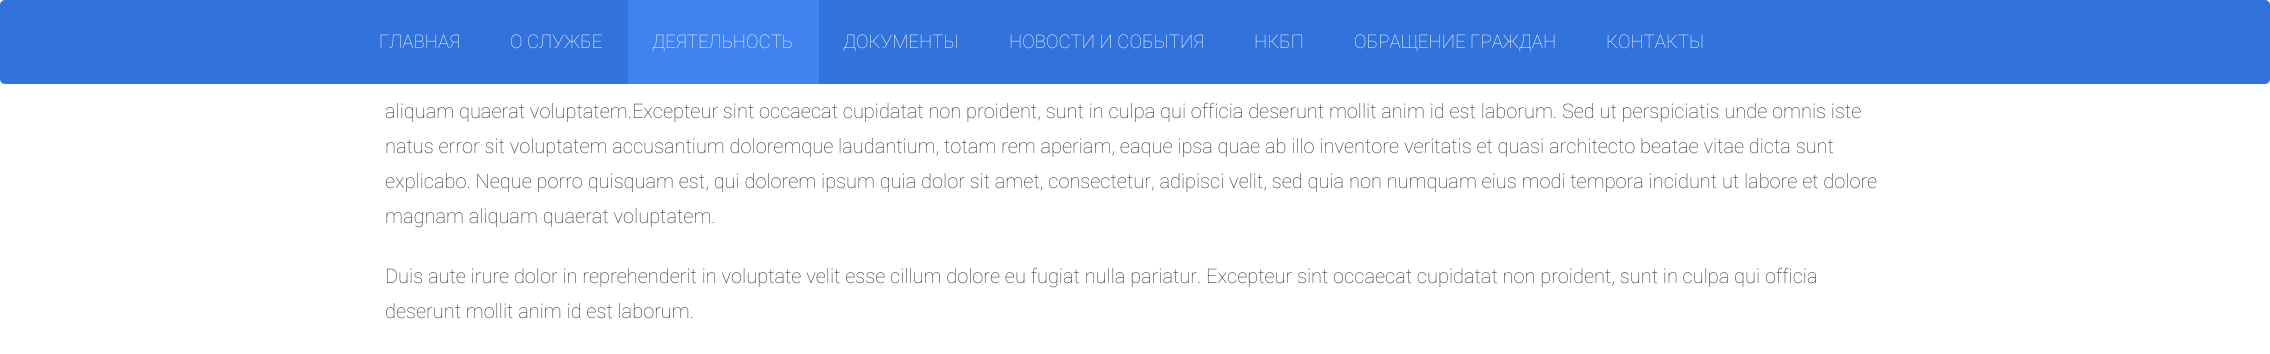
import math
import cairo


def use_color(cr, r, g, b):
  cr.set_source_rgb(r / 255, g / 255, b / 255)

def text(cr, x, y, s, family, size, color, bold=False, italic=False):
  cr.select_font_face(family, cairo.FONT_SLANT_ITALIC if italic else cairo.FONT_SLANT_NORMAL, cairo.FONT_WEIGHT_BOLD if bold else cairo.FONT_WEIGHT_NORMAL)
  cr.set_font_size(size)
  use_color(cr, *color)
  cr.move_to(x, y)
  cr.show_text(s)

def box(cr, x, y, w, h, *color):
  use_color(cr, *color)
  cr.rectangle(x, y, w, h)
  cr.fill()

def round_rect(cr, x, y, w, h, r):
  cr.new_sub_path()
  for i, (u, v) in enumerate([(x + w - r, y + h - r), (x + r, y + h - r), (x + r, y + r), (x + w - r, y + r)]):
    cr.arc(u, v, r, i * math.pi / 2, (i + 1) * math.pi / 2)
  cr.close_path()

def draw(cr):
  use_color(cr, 255, 255, 255)
  cr.paint()
  use_color(cr, 50, 114, 219)
  round_rect(cr, 0, 0, 2270, 84, 5)
  cr.fill()
  box(cr, 628, 0, 191, 84, 64, 130, 239)
  text(cr, 379, 48, "ГЛАВНАЯ", "Roboto Thin", 18.75, (255, 255, 255))
  text(cr, 510, 48, "О СЛУЖБЕ", "Roboto Thin", 18.75, (255, 255, 255))
  text(cr, 652, 48, "ДЕЯТЕЛЬНОСТЬ", "Roboto Thin", 18.75, (255, 255, 255))
  text(cr, 843, 48, "ДОКУМЕНТЫ", "Roboto Thin", 18.75, (255, 255, 255))
  text(cr, 1009, 48, "НОВОСТИ И СОБЫТИЯ", "Roboto Thin", 18.75, (255, 255, 255))
  text(cr, 1254, 48, "НКБП", "Roboto Thin", 18.75, (255, 255, 255))
  text(cr, 1354, 48, "ОБРАЩЕНИЕ ГРАЖДАН", "Roboto Thin", 18.75, (255, 255, 255))
  text(cr, 1606, 48, "КОНТАКТЫ", "Roboto Thin", 18.75, (255, 255, 255))
  text(cr, 385, 118, "aliquam quaerat voluptatem.Excepteur sint occaecat cupidatat non proident, sunt in culpa qui officia deserunt mollit anim id est laborum. Sed ut perspiciatis unde omnis iste", "Roboto Thin", 20, (43, 43, 43))
  text(cr, 385, 153, "natus error sit voluptatem accusantium doloremque laudantium, totam rem aperiam, eaque ipsa quae ab illo inventore veritatis et quasi architecto beatae vitae dicta sunt", "Roboto Thin", 20, (43, 43, 43))
  text(cr, 385, 188, "explicabo. Neque porro quisquam est, qui dolorem ipsum quia dolor sit amet, consectetur, adipisci velit, sed quia non numquam eius modi tempora incidunt ut labore et dolore", "Roboto Thin", 20, (43, 43, 43))
  text(cr, 385, 223, "magnam aliquam quaerat voluptatem.", "Roboto Thin", 20, (43, 43, 43))
  text(cr, 385, 283, "Duis aute irure dolor in reprehenderit in voluptate velit esse cillum dolore eu fugiat nulla pariatur. Excepteur sint occaecat cupidatat non proident, sunt in culpa qui officia", "Roboto Thin", 20, (43, 43, 43))
  text(cr, 385, 318, "deserunt mollit anim id est laborum.", "Roboto Thin", 20, (43, 43, 43))


surface = cairo.ImageSurface(cairo.FORMAT_RGB24, 2270, 354)
cr = cairo.Context(surface)
options = cairo.FontOptions()
options.set_hint_metrics(cairo.HINT_METRICS_OFF)
options.set_hint_style(cairo.HINT_STYLE_NONE)
cr.set_font_options(options)
cr.set_miter_limit(4)
draw(cr)
surface.write_to_png("out.png")
